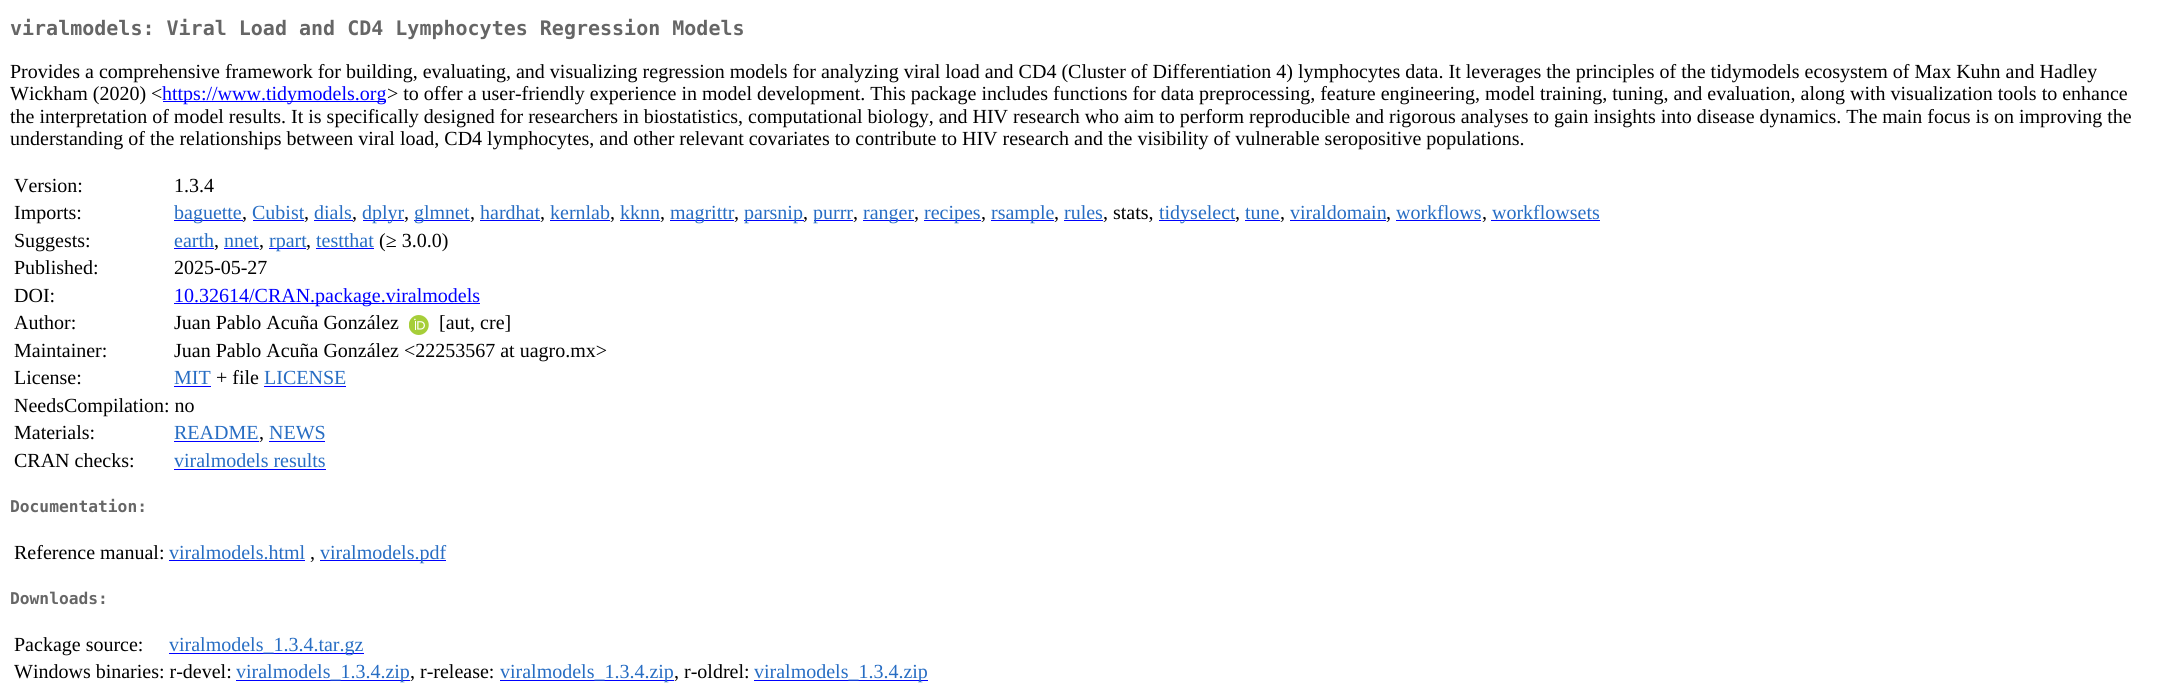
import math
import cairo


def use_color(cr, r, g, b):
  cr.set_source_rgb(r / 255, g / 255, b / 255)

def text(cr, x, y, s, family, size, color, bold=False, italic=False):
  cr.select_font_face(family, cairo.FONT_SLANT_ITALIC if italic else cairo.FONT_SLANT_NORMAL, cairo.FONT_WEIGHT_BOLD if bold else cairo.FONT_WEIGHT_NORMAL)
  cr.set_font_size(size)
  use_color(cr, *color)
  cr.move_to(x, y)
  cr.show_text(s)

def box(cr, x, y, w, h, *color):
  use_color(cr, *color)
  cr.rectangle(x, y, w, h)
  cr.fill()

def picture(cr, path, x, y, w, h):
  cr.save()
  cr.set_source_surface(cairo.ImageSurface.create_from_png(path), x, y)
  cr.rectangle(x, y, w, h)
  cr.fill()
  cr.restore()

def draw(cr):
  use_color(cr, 255, 255, 255)
  cr.paint()
  box(cr, 163, 101, 223, 1, 0, 0, 255)
  box(cr, 174, 220, 69, 1, 0, 0, 255)
  box(cr, 253, 220, 51, 1, 0, 0, 255)
  box(cr, 314, 220, 39, 1, 0, 0, 255)
  box(cr, 363, 220, 41, 1, 0, 0, 255)
  box(cr, 414, 220, 56, 1, 0, 0, 255)
  box(cr, 480, 220, 60, 1, 0, 0, 255)
  box(cr, 550, 220, 60, 1, 0, 0, 255)
  box(cr, 620, 220, 40, 1, 0, 0, 255)
  box(cr, 670, 220, 64, 1, 0, 0, 255)
  box(cr, 744, 220, 60, 1, 0, 0, 255)
  box(cr, 814, 220, 39, 1, 0, 0, 255)
  box(cr, 863, 220, 51, 1, 0, 0, 255)
  box(cr, 924, 220, 57, 1, 0, 0, 255)
  box(cr, 991, 220, 63, 1, 0, 0, 255)
  box(cr, 1064, 220, 39, 1, 0, 0, 255)
  box(cr, 1159, 220, 76, 1, 0, 0, 255)
  box(cr, 1245, 220, 35, 1, 0, 0, 255)
  box(cr, 1290, 220, 96, 1, 0, 0, 255)
  box(cr, 1396, 220, 85, 1, 0, 0, 255)
  box(cr, 1491, 220, 109, 1, 0, 0, 255)
  box(cr, 174, 248, 40, 1, 0, 0, 255)
  box(cr, 224, 248, 35, 1, 0, 0, 255)
  box(cr, 269, 248, 37, 1, 0, 0, 255)
  box(cr, 316, 248, 58, 1, 0, 0, 255)
  box(cr, 174, 303, 306, 1, 0, 0, 255)
  picture(cr, "img_01.png", 409, 315, 20, 20)
  box(cr, 174, 386, 37, 1, 0, 0, 255)
  box(cr, 264, 386, 82, 1, 0, 0, 255)
  box(cr, 174, 441, 85, 1, 0, 0, 255)
  box(cr, 269, 441, 56, 1, 0, 0, 255)
  box(cr, 174, 469, 152, 1, 0, 0, 255)
  box(cr, 169, 560, 136, 1, 0, 0, 255)
  box(cr, 320, 560, 126, 1, 0, 0, 255)
  box(cr, 169, 653, 195, 1, 0, 0, 255)
  box(cr, 236, 680, 174, 1, 0, 0, 255)
  box(cr, 500, 680, 174, 1, 0, 0, 255)
  box(cr, 754, 680, 174, 1, 0, 0, 255)
  text(cr, 10, 35, "viralmodels: Viral Load and CD4 Lymphocytes Regression Models", "DejaVu Sans Mono", 20, (102, 102, 102), bold=True)
  text(cr, 10, 78, "Provides a comprehensive framework for building, evaluating, and visualizing regression models for analyzing viral load and CD4 (Cluster of Differentiation 4) lymphocytes data. It leverages the principles of the tidymodels ecosystem of Max Kuhn and Hadley", "Liberation Serif", 20, (0, 0, 0))
  text(cr, 10, 100, "Wickham (2020) <", "Liberation Serif", 20, (0, 0, 0))
  text(cr, 162, 100, "https://www.tidymodels.org", "Liberation Serif", 20, (0, 0, 255))
  text(cr, 387, 100, "> to offer a user-friendly experience in model development. This package includes functions for data preprocessing, feature engineering, model training, tuning, and evaluation, along with visualization tools to enhance", "Liberation Serif", 20, (0, 0, 0))
  text(cr, 10, 123, "the interpretation of model results. It is specifically designed for researchers in biostatistics, computational biology, and HIV research who aim to perform reproducible and rigorous analyses to gain insights into disease dynamics. The main focus is on improving the", "Liberation Serif", 20, (0, 0, 0))
  text(cr, 10, 145, "understanding of the relationships between viral load, CD4 lymphocytes, and other relevant covariates to contribute to HIV research and the visibility of vulnerable seropositive populations.", "Liberation Serif", 20, (0, 0, 0))
  text(cr, 14, 192, "Version:", "Liberation Serif", 20, (0, 0, 0))
  text(cr, 174, 192, "1.3.4", "Liberation Serif", 20, (0, 0, 0))
  text(cr, 14, 219, "Imports:", "Liberation Serif", 20, (0, 0, 0))
  text(cr, 174, 219, "baguette", "Liberation Serif", 20, (39, 109, 195))
  text(cr, 242, 219, ",", "Liberation Serif", 20, (0, 0, 0))
  text(cr, 252, 219, "Cubist", "Liberation Serif", 20, (39, 109, 195))
  text(cr, 304, 219, ",", "Liberation Serif", 20, (0, 0, 0))
  text(cr, 314, 219, "dials", "Liberation Serif", 20, (39, 109, 195))
  text(cr, 352, 219, ",", "Liberation Serif", 20, (0, 0, 0))
  text(cr, 362, 219, "dplyr", "Liberation Serif", 20, (39, 109, 195))
  text(cr, 404, 219, ",", "Liberation Serif", 20, (0, 0, 0))
  text(cr, 414, 219, "glmnet", "Liberation Serif", 20, (39, 109, 195))
  text(cr, 470, 219, ",", "Liberation Serif", 20, (0, 0, 0))
  text(cr, 480, 219, "hardhat", "Liberation Serif", 20, (39, 109, 195))
  text(cr, 540, 219, ",", "Liberation Serif", 20, (0, 0, 0))
  text(cr, 550, 219, "kernlab", "Liberation Serif", 20, (39, 109, 195))
  text(cr, 610, 219, ",", "Liberation Serif", 20, (0, 0, 0))
  text(cr, 620, 219, "kknn", "Liberation Serif", 20, (39, 109, 195))
  text(cr, 660, 219, ",", "Liberation Serif", 20, (0, 0, 0))
  text(cr, 670, 219, "magrittr", "Liberation Serif", 20, (39, 109, 195))
  text(cr, 734, 219, ",", "Liberation Serif", 20, (0, 0, 0))
  text(cr, 744, 219, "parsnip", "Liberation Serif", 20, (39, 109, 195))
  text(cr, 803, 219, ",", "Liberation Serif", 20, (0, 0, 0))
  text(cr, 813, 219, "purrr", "Liberation Serif", 20, (39, 109, 195))
  text(cr, 853, 219, ",", "Liberation Serif", 20, (0, 0, 0))
  text(cr, 863, 219, "ranger", "Liberation Serif", 20, (39, 109, 195))
  text(cr, 914, 219, ",", "Liberation Serif", 20, (0, 0, 0))
  text(cr, 924, 219, "recipes", "Liberation Serif", 20, (39, 109, 195))
  text(cr, 981, 219, ",", "Liberation Serif", 20, (0, 0, 0))
  text(cr, 991, 219, "rsample", "Liberation Serif", 20, (39, 109, 195))
  text(cr, 1054, 219, ",", "Liberation Serif", 20, (0, 0, 0))
  text(cr, 1064, 219, "rules", "Liberation Serif", 20, (39, 109, 195))
  text(cr, 1103, 219, ", stats,", "Liberation Serif", 20, (0, 0, 0))
  text(cr, 1159, 219, "tidyselect", "Liberation Serif", 20, (39, 109, 195))
  text(cr, 1235, 219, ",", "Liberation Serif", 20, (0, 0, 0))
  text(cr, 1245, 219, "tune", "Liberation Serif", 20, (39, 109, 195))
  text(cr, 1280, 219, ",", "Liberation Serif", 20, (0, 0, 0))
  text(cr, 1290, 219, "viraldomain", "Liberation Serif", 20, (39, 109, 195))
  text(cr, 1386, 219, ",", "Liberation Serif", 20, (0, 0, 0))
  text(cr, 1396, 219, "workflows", "Liberation Serif", 20, (39, 109, 195))
  text(cr, 1482, 219, ",", "Liberation Serif", 20, (0, 0, 0))
  text(cr, 1492, 219, "workflowsets", "Liberation Serif", 20, (39, 109, 195))
  text(cr, 14, 247, "Suggests:", "Liberation Serif", 20, (0, 0, 0))
  text(cr, 174, 247, "earth", "Liberation Serif", 20, (39, 109, 195))
  text(cr, 214, 247, ",", "Liberation Serif", 20, (0, 0, 0))
  text(cr, 224, 247, "nnet", "Liberation Serif", 20, (39, 109, 195))
  text(cr, 259, 247, ",", "Liberation Serif", 20, (0, 0, 0))
  text(cr, 269, 247, "rpart", "Liberation Serif", 20, (39, 109, 195))
  text(cr, 306, 247, ",", "Liberation Serif", 20, (0, 0, 0))
  text(cr, 316, 247, "testthat", "Liberation Serif", 20, (39, 109, 195))
  text(cr, 379, 247, "(≥ 3.0.0)", "Liberation Serif", 20, (0, 0, 0))
  text(cr, 14, 274, "Published:", "Liberation Serif", 20, (0, 0, 0))
  text(cr, 174, 274, "2025-05-27", "Liberation Serif", 20, (0, 0, 0))
  text(cr, 14, 302, "DOI:", "Liberation Serif", 20, (0, 0, 0))
  text(cr, 174, 302, "10.32614/CRAN.package.viralmodels", "Liberation Serif", 20, (0, 0, 255))
  text(cr, 14, 329, "Author:", "Liberation Serif", 20, (0, 0, 0))
  text(cr, 174, 329, "Juan Pablo Acuña González", "Liberation Serif", 20, (0, 0, 0))
  text(cr, 439, 329, "[aut, cre]", "Liberation Serif", 20, (0, 0, 0))
  text(cr, 14, 357, "Maintainer:", "Liberation Serif", 20, (0, 0, 0))
  text(cr, 174, 357, "Juan Pablo Acuña González <22253567 at uagro.mx>", "Liberation Serif", 20, (0, 0, 0))
  text(cr, 14, 384, "License:", "Liberation Serif", 20, (0, 0, 0))
  text(cr, 174, 384, "MIT", "Liberation Serif", 20, (39, 109, 195))
  text(cr, 216, 384, "+ file", "Liberation Serif", 20, (0, 0, 0))
  text(cr, 264, 384, "LICENSE", "Liberation Serif", 20, (39, 109, 195))
  text(cr, 14, 412, "NeedsCompilation: no", "Liberation Serif", 20, (0, 0, 0))
  text(cr, 14, 439, "Materials:", "Liberation Serif", 20, (0, 0, 0))
  text(cr, 174, 439, "README", "Liberation Serif", 20, (39, 109, 195))
  text(cr, 259, 439, ",", "Liberation Serif", 20, (0, 0, 0))
  text(cr, 269, 439, "NEWS", "Liberation Serif", 20, (39, 109, 195))
  text(cr, 14, 467, "CRAN checks:", "Liberation Serif", 20, (0, 0, 0))
  text(cr, 174, 467, "viralmodels results", "Liberation Serif", 20, (39, 109, 195))
  text(cr, 10, 512, "Documentation:", "DejaVu Sans Mono", 16.25, (102, 102, 102), bold=True)
  text(cr, 14, 559, "Reference manual:", "Liberation Serif", 20, (0, 0, 0))
  text(cr, 169, 559, "viralmodels.html", "Liberation Serif", 20, (39, 109, 195))
  text(cr, 310, 559, ",", "Liberation Serif", 20, (0, 0, 0))
  text(cr, 320, 559, "viralmodels.pdf", "Liberation Serif", 20, (39, 109, 195))
  text(cr, 10, 604, "Downloads:", "DejaVu Sans Mono", 16.25, (102, 102, 102), bold=True)
  text(cr, 14, 651, "Package source:", "Liberation Serif", 20, (0, 0, 0))
  text(cr, 169, 651, "viralmodels_1.3.4.tar.gz", "Liberation Serif", 20, (39, 109, 195))
  text(cr, 14, 678, "Windows binaries: r-devel:", "Liberation Serif", 20, (0, 0, 0))
  text(cr, 236, 678, "viralmodels_1.3.4.zip", "Liberation Serif", 20, (39, 109, 195))
  text(cr, 410, 678, ", r-release:", "Liberation Serif", 20, (0, 0, 0))
  text(cr, 500, 678, "viralmodels_1.3.4.zip", "Liberation Serif", 20, (39, 109, 195))
  text(cr, 674, 678, ", r-oldrel:", "Liberation Serif", 20, (0, 0, 0))
  text(cr, 754, 678, "viralmodels_1.3.4.zip", "Liberation Serif", 20, (39, 109, 195))


surface = cairo.ImageSurface(cairo.FORMAT_RGB24, 2161, 687)
cr = cairo.Context(surface)
options = cairo.FontOptions()
options.set_hint_metrics(cairo.HINT_METRICS_OFF)
options.set_hint_style(cairo.HINT_STYLE_NONE)
cr.set_font_options(options)
cr.set_miter_limit(4)
draw(cr)
surface.write_to_png("out.png")
